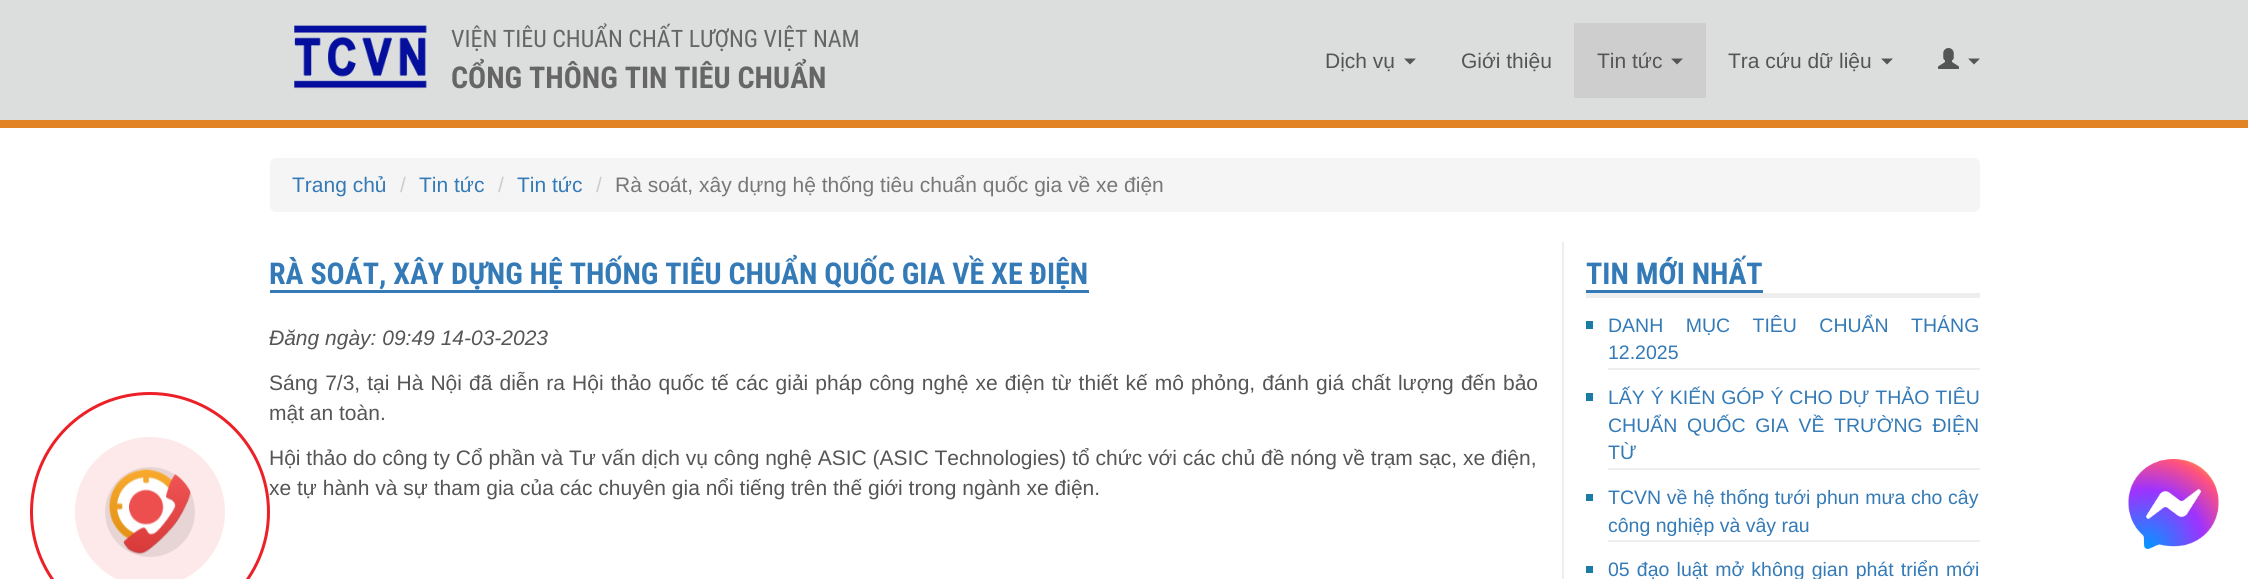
import math
import cairo


def use_color(cr, r, g, b):
  cr.set_source_rgb(r / 255, g / 255, b / 255)

def text(cr, x, y, s, family, size, color, bold=False, italic=False):
  cr.select_font_face(family, cairo.FONT_SLANT_ITALIC if italic else cairo.FONT_SLANT_NORMAL, cairo.FONT_WEIGHT_BOLD if bold else cairo.FONT_WEIGHT_NORMAL)
  cr.set_font_size(size)
  use_color(cr, *color)
  cr.move_to(x, y)
  cr.show_text(s)

def spaced_text(cr, x, y, s, letter, word):
  cr.move_to(x, y)
  for ch in s:
    cr.show_text(ch)
    cr.rel_move_to(letter + word * (ch == ' '), 0)

def box(cr, x, y, w, h, *color):
  use_color(cr, *color)
  cr.rectangle(x, y, w, h)
  cr.fill()

def round_rect(cr, x, y, w, h, r):
  cr.new_sub_path()
  for i, (u, v) in enumerate([(x + w - r, y + h - r), (x + r, y + h - r), (x + r, y + r), (x + w - r, y + r)]):
    cr.arc(u, v, r, i * math.pi / 2, (i + 1) * math.pi / 2)
  cr.close_path()

def picture(cr, path, x, y, w, h):
  cr.save()
  cr.set_source_surface(cairo.ImageSurface.create_from_png(path), x, y)
  cr.rectangle(x, y, w, h)
  cr.fill()
  cr.restore()

def draw(cr):
  use_color(cr, 255, 255, 255)
  cr.paint()
  box(cr, 0, 0, 2248, 120, 220, 222, 221)
  box(cr, 0, 120, 2248, 8, 226, 131, 38)
  picture(cr, "img_02.png", 294, 25, 133, 64)
  use_color(cr, 85, 85, 85)
  cr.new_path()
  cr.move_to(1404, 58.5)
  cr.line_to(1416, 58.5)
  cr.line_to(1410, 64.5)
  cr.close_path()
  cr.fill()
  box(cr, 1574, 23, 132, 75, 206, 206, 206)
  use_color(cr, 85, 85, 85)
  cr.new_path()
  cr.move_to(1671, 58.5)
  cr.line_to(1683, 58.5)
  cr.line_to(1677, 64.5)
  cr.close_path()
  cr.fill()
  cr.new_path()
  cr.move_to(1881, 58.5)
  cr.line_to(1893, 58.5)
  cr.line_to(1887, 64.5)
  cr.close_path()
  cr.fill()
  picture(cr, "img_03.png", 1938, 48, 21, 21)
  cr.new_path()
  cr.move_to(1968, 58.5)
  cr.line_to(1980, 58.5)
  cr.line_to(1974, 64.5)
  cr.close_path()
  cr.fill()
  use_color(cr, 245, 245, 245)
  round_rect(cr, 270, 158, 1710, 54, 6)
  cr.fill()
  box(cr, 1562, 242, 2, 337, 238, 238, 238)
  box(cr, 270, 290, 819, 3, 51, 122, 183)
  box(cr, 1586, 290, 177, 3, 51, 122, 183)
  box(cr, 1586, 293, 394, 5, 238, 238, 238)
  box(cr, 1608, 368, 372, 2, 238, 238, 238)
  box(cr, 1586, 321, 7, 8, 26, 124, 165)
  box(cr, 1608, 468, 372, 2, 238, 238, 238)
  box(cr, 1586, 393, 7, 8, 26, 124, 165)
  box(cr, 1608, 540, 372, 2, 238, 238, 238)
  box(cr, 1586, 494, 7, 7, 26, 124, 165)
  box(cr, 1586, 566, 7, 7, 26, 124, 165)
  picture(cr, "img_04.png", 2128, 459, 91, 90)
  text(cr, 451, 47, "VIỆN TIÊU CHUẨN CHẤT LƯỢNG VIỆT NAM", "Roboto Condensed", 24, (102, 102, 102))
  text(cr, 451, 88, "CỔNG THÔNG TIN TIÊU CHUẨN", "Roboto Condensed", 30, (102, 102, 102), bold=True)
  text(cr, 1325, 68, "Dịch vụ", "Liberation Sans", 21, (85, 85, 85))
  text(cr, 1461, 68, "Giới thiệu", "Liberation Sans", 21, (85, 85, 85))
  text(cr, 1597, 68, "Tin tức", "Liberation Sans", 21, (85, 85, 85))
  text(cr, 1728, 68, "Tra cứu dữ liệu", "Liberation Sans", 21, (85, 85, 85))
  text(cr, 292, 192, "Trang chủ", "Liberation Sans", 21, (51, 122, 183))
  text(cr, 400, 192, "/", "Liberation Sans", 21, (204, 204, 204))
  text(cr, 419, 192, "Tin tức", "Liberation Sans", 21, (51, 122, 183))
  text(cr, 498, 192, "/", "Liberation Sans", 21, (204, 204, 204))
  text(cr, 517, 192, "Tin tức", "Liberation Sans", 21, (51, 122, 183))
  text(cr, 596, 192, "/", "Liberation Sans", 21, (204, 204, 204))
  text(cr, 615, 192, "Rà soát, xây dựng hệ thống tiêu chuẩn quốc gia về xe điện", "Liberation Sans", 21, (119, 119, 119))
  text(cr, 269, 284, "RÀ SOÁT, XÂY DỰNG HỆ THỐNG TIÊU CHUẨN QUỐC GIA VỀ XE ĐIỆN", "Roboto Condensed", 30, (51, 122, 183), bold=True)
  text(cr, 269, 345, "Đăng ngày: 09:49 14-03-2023", "Liberation Sans", 21, (85, 85, 85), italic=True)
  cr.select_font_face("Liberation Sans")
  spaced_text(cr, 269, 390, "Sáng 7/3, tại Hà Nội đã diễn ra Hội thảo quốc tế các giải pháp công nghệ xe điện từ thiết kế mô phỏng, đánh giá chất lượng đến bảo", 0, 1.25)
  text(cr, 269, 420, "mật an toàn.", "Liberation Sans", 21, (85, 85, 85))
  text(cr, 269, 465, "Hội thảo do công ty Cổ phần và Tư vấn dịch vụ công nghệ ASIC (ASIC Technologies) tổ chức với các chủ đề nóng về trạm sạc, xe điện,", "Liberation Sans", 21, (85, 85, 85))
  text(cr, 269, 495, "xe tự hành và sự tham gia của các chuyên gia nổi tiếng trên thế giới trong ngành xe điện.", "Liberation Sans", 21, (85, 85, 85))
  cr.new_path()
  cr.arc(150, 512, 118.5, 0, 2 * math.pi)
  use_color(cr, 237, 31, 39)
  cr.set_line_width(3)
  cr.stroke()
  use_color(cr, 253, 233, 233)
  cr.arc(150, 512, 73.5, 0, 2 * math.pi)
  cr.fill_preserve()
  cr.stroke()
  use_color(cr, 231, 213, 213)
  cr.arc(150, 512, 45, 0, 2 * math.pi)
  cr.fill()
  picture(cr, "img_01.png", 109, 469, 82, 85)
  text(cr, 1586, 284, "TIN MỚI NHẤT", "Roboto Condensed", 30, (51, 122, 183), bold=True)
  cr.select_font_face("Liberation Sans")
  cr.set_font_size(19.5)
  spaced_text(cr, 1608, 332, "DANH MỤC TIÊU CHUẨN THÁNG", 0, 17)
  text(cr, 1608, 359, "12.2025", "Liberation Sans", 19.5, (51, 122, 183))
  spaced_text(cr, 1608, 404, "LẤY Ý KIẾN GÓP Ý CHO DỰ THẢO TIÊU", 0, 0.5)
  spaced_text(cr, 1608, 432, "CHUẨN QUỐC GIA VỀ TRƯỜNG ĐIỆN", 0, 4.25)
  text(cr, 1608, 459, "TỪ", "Liberation Sans", 19.5, (51, 122, 183))
  spaced_text(cr, 1608, 504, "TCVN về hệ thống tưới phun mưa cho cây", 0, 0.25)
  text(cr, 1608, 532, "công nghiệp và vây rau", "Liberation Sans", 19.5, (51, 122, 183))
  spaced_text(cr, 1608, 576, "05 đạo luật mở không gian phát triển mới", 0, 1.75)


surface = cairo.ImageSurface(cairo.FORMAT_RGB24, 2248, 579)
cr = cairo.Context(surface)
options = cairo.FontOptions()
options.set_hint_metrics(cairo.HINT_METRICS_OFF)
options.set_hint_style(cairo.HINT_STYLE_NONE)
cr.set_font_options(options)
cr.set_miter_limit(4)
draw(cr)
surface.write_to_png("out.png")
